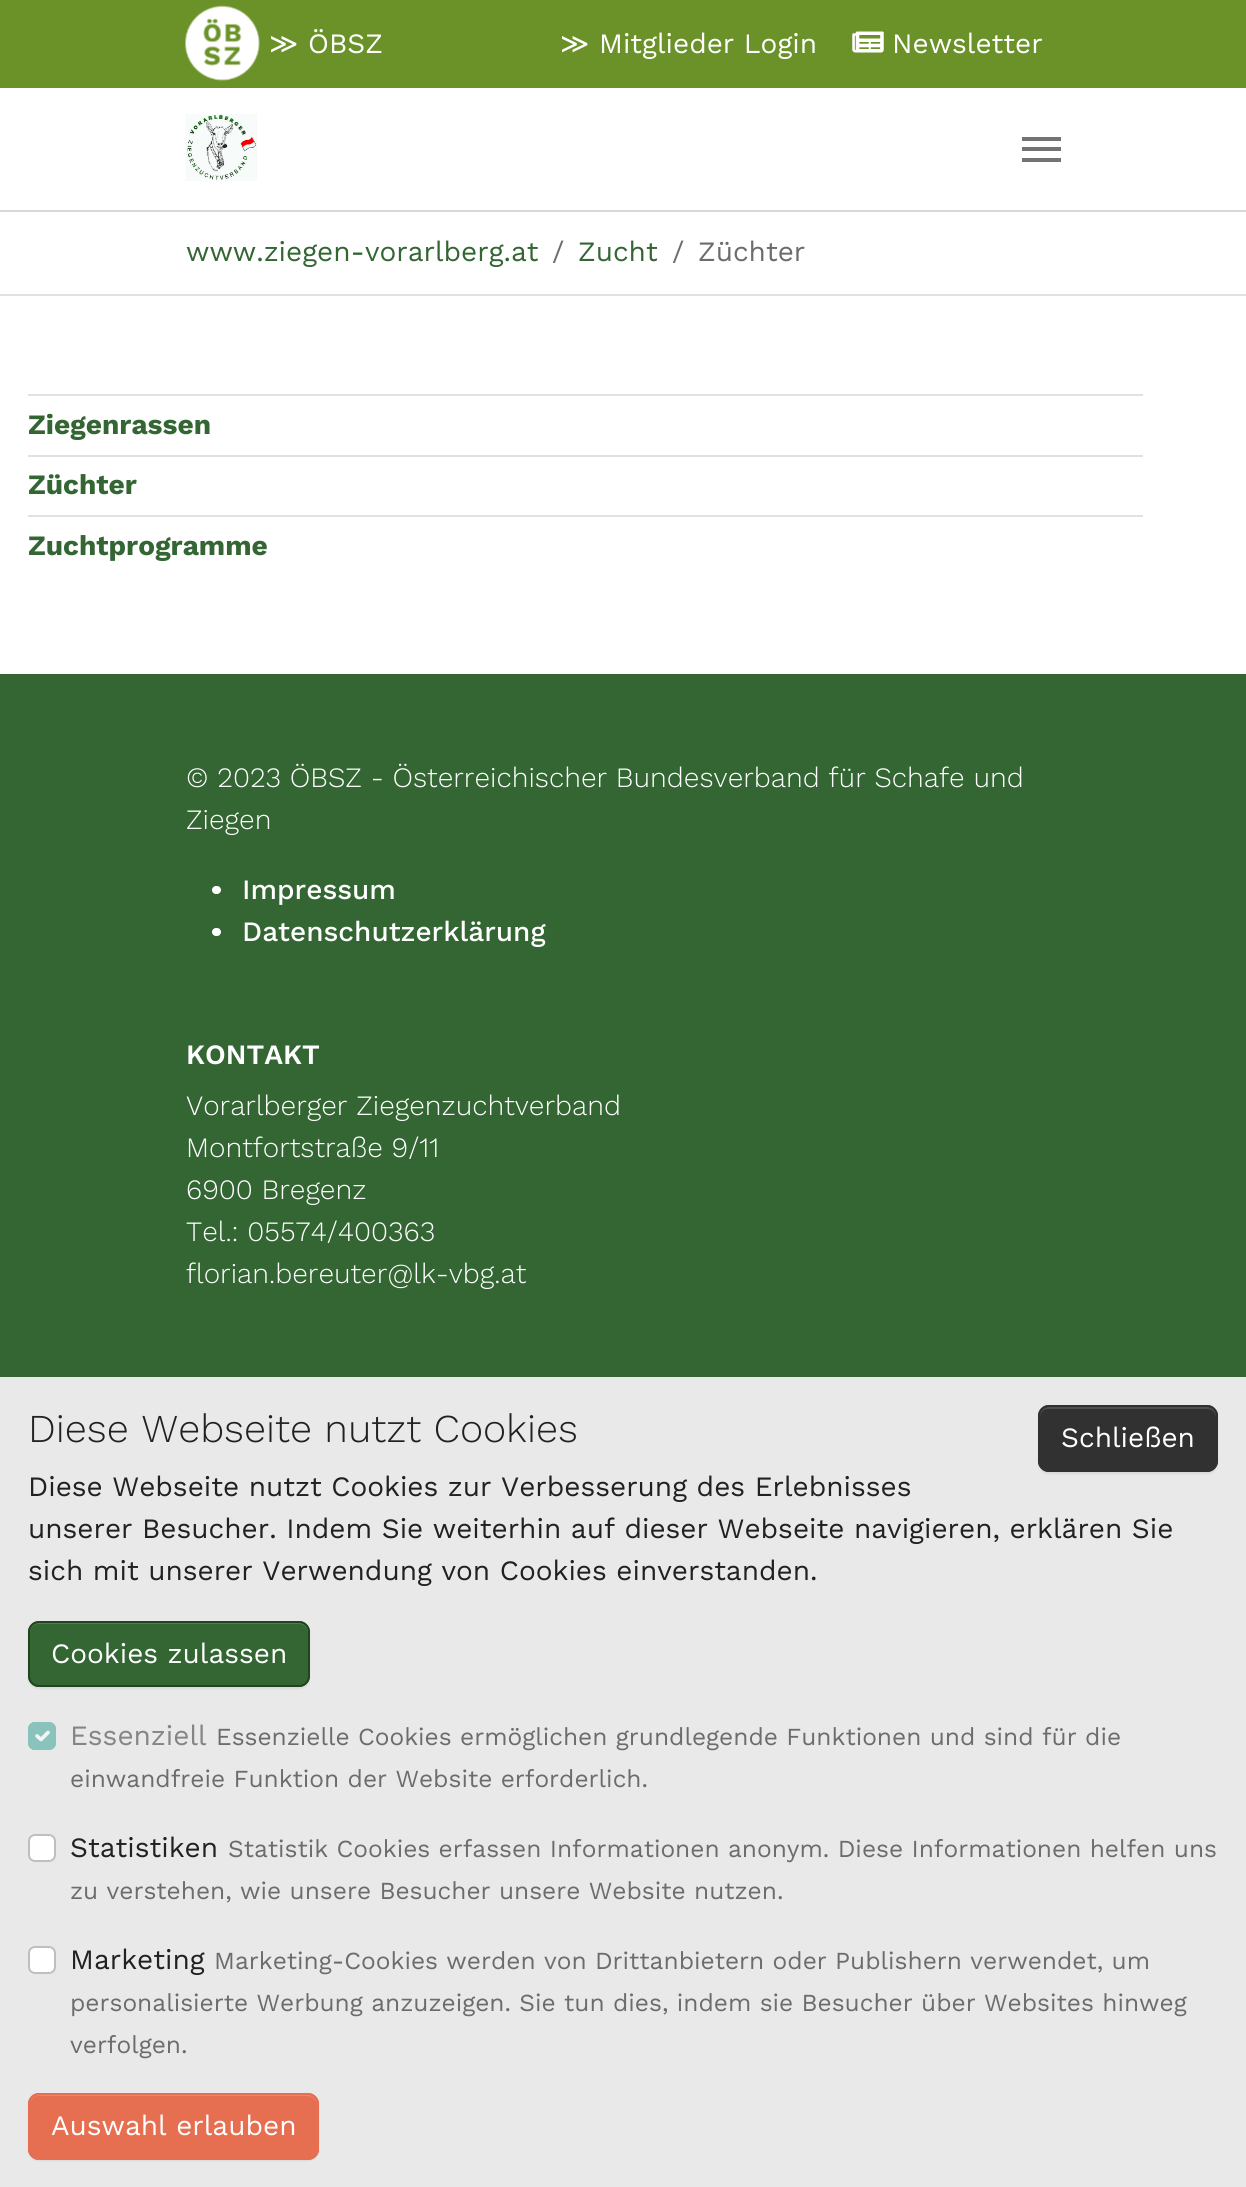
import math
import cairo


def use_color(cr, r, g, b):
  cr.set_source_rgb(r / 255, g / 255, b / 255)

def text(cr, x, y, s, family, size, color, bold=False, italic=False):
  cr.select_font_face(family, cairo.FONT_SLANT_ITALIC if italic else cairo.FONT_SLANT_NORMAL, cairo.FONT_WEIGHT_BOLD if bold else cairo.FONT_WEIGHT_NORMAL)
  cr.set_font_size(size)
  use_color(cr, *color)
  cr.move_to(x, y)
  cr.show_text(s)

def box(cr, x, y, w, h, *color):
  use_color(cr, *color)
  cr.rectangle(x, y, w, h)
  cr.fill()

def round_rect(cr, x, y, w, h, r):
  cr.new_sub_path()
  for i, (u, v) in enumerate([(x + w - r, y + h - r), (x + r, y + h - r), (x + r, y + r), (x + w - r, y + r)]):
    cr.arc(u, v, r, i * math.pi / 2, (i + 1) * math.pi / 2)
  cr.close_path()

def shadow(cr, x, y, w, h, r, blur, alpha):
  cr.push_group_with_content(cairo.CONTENT_ALPHA)
  cr.set_operator(cairo.OPERATOR_SOURCE)
  for i in range(15, -16, -2):
    e = blur * i / 6
    if min(w, h) + 2 * e > 0:
      cr.set_source_rgba(0, 0, 0, alpha * math.erfc((i - 1) / 8.5) / 2)
      round_rect(cr, x - e, y - e, w + 2 * e, h + 2 * e, max(0, min(r + e + blur * .6, min(w, h) / 2 + e)))
      cr.fill()
  cr.mask(cr.pop_group())

def picture(cr, path, x, y, w, h):
  cr.save()
  cr.set_source_surface(cairo.ImageSurface.create_from_png(path), x, y)
  cr.rectangle(x, y, w, h)
  cr.fill()
  cr.restore()

def draw(cr):
  use_color(cr, 255, 255, 255)
  cr.paint()
  box(cr, 0, 0, 1246, 88, 107, 146, 41)
  picture(cr, "img_01.png", 185, 5, 75, 76)
  picture(cr, "img_02.png", 852, 31, 32, 22)
  box(cr, 0, 210, 1246, 2, 217, 217, 217)
  picture(cr, "img_03.png", 185, 114, 72, 67)
  box(cr, 1022, 147, 39, 4, 115, 115, 115)
  box(cr, 1022, 137, 39, 4, 115, 115, 115)
  box(cr, 1022, 158, 39, 4, 115, 115, 115)
  box(cr, 0, 294, 1246, 2, 225, 224, 231)
  box(cr, 28, 394, 1115, 2, 225, 224, 231)
  box(cr, 28, 455, 1115, 2, 225, 224, 231)
  box(cr, 28, 515, 1115, 2, 225, 224, 231)
  box(cr, 0, 674, 1246, 703, 51, 102, 51)
  use_color(cr, 255, 255, 255)
  round_rect(cr, 212, 886, 9, 8, 4)
  cr.fill()
  round_rect(cr, 212, 928, 9, 8, 4)
  cr.fill()
  box(cr, 0, 1377, 1246, 810, 233, 233, 233)
  use_color(cr, 0, 0, 0)
  shadow(cr, 1038, 1407, 180, 67, 11, 1, 0.07)
  use_color(cr, 49, 49, 49)
  round_rect(cr, 1038, 1405, 180, 67, 11)
  cr.fill()
  use_color(cr, 80, 80, 80)
  cr.new_path()
  cr.move_to(1048, 1409)
  cr.line_to(1208, 1409)
  cr.curve_to(1212, 1409, 1216, 1413, 1216, 1418)
  cr.line_to(1216, 1416)
  cr.curve_to(1216, 1411, 1212, 1407, 1207, 1407)
  cr.line_to(1049, 1407)
  cr.curve_to(1044, 1407, 1040, 1411, 1040, 1416)
  cr.line_to(1040, 1418)
  cr.curve_to(1040, 1413, 1043, 1409, 1048, 1409)
  cr.close_path()
  cr.fill()
  round_rect(cr, 1039, 1406, 178, 65, 10)
  use_color(cr, 49, 49, 49)
  cr.stroke()
  use_color(cr, 0, 0, 0)
  shadow(cr, 28, 1622, 282, 67, 11, 1, 0.07)
  use_color(cr, 51, 102, 51)
  round_rect(cr, 28, 1621, 282, 66, 11)
  cr.fill()
  use_color(cr, 82, 125, 82)
  cr.new_path()
  cr.move_to(38, 1624)
  cr.line_to(299, 1624)
  cr.curve_to(304, 1624, 308, 1628, 308, 1633)
  cr.line_to(308, 1631)
  cr.curve_to(308, 1626, 304, 1622, 299, 1622)
  cr.line_to(39, 1622)
  cr.curve_to(34, 1622, 30, 1626, 30, 1631)
  cr.line_to(30, 1633)
  cr.curve_to(30, 1628, 34, 1624, 38, 1624)
  cr.close_path()
  cr.fill()
  round_rect(cr, 29, 1622, 280, 64, 10)
  use_color(cr, 34, 68, 34)
  cr.stroke()
  use_color(cr, 138, 195, 188)
  round_rect(cr, 28, 1722, 28, 28, 7)
  cr.fill()
  cr.new_path()
  cr.move_to(37, 1736)
  cr.line_to(41, 1739.5)
  cr.line_to(48, 1732.5)
  use_color(cr, 244, 244, 244)
  cr.set_line_width(3.7)
  cr.set_line_cap(cairo.LINE_CAP_ROUND)
  cr.set_line_join(cairo.LINE_JOIN_ROUND)
  cr.stroke()
  round_rect(cr, 29, 1723, 26, 26, 6)
  use_color(cr, 138, 195, 188)
  cr.set_line_width(2)
  cr.set_line_cap(cairo.LINE_CAP_BUTT)
  cr.set_line_join(cairo.LINE_JOIN_MITER)
  cr.stroke()
  use_color(cr, 255, 255, 255)
  round_rect(cr, 28, 1834, 28, 28, 7)
  cr.fill()
  round_rect(cr, 29, 1835, 26, 26, 6)
  cr.set_source_rgba(0, 0, 0, 0.25)
  cr.stroke()
  use_color(cr, 255, 255, 255)
  round_rect(cr, 28, 1946, 28, 28, 7)
  cr.fill()
  round_rect(cr, 29, 1947, 26, 26, 6)
  cr.set_source_rgba(0, 0, 0, 0.25)
  cr.stroke()
  use_color(cr, 0, 0, 0)
  shadow(cr, 28, 2095, 291, 66, 11, 1, 0.07)
  use_color(cr, 231, 111, 81)
  round_rect(cr, 28, 2093, 291, 67, 11)
  cr.fill()
  use_color(cr, 235, 133, 107)
  cr.new_path()
  cr.move_to(38, 2096)
  cr.line_to(308, 2096)
  cr.curve_to(313, 2096, 317, 2100, 317, 2105)
  cr.curve_to(317, 2100, 314, 2095, 308, 2095)
  cr.line_to(37, 2095)
  cr.curve_to(32, 2096, 30, 2100, 30, 2105)
  cr.curve_to(30, 2100, 34, 2096, 38, 2096)
  cr.close_path()
  cr.fill()
  round_rect(cr, 29, 2094, 289, 65, 10)
  use_color(cr, 231, 111, 81)
  cr.stroke()
  text(cr, 269, 53, "≫", "DejaVu Sans", 28, (255, 255, 255))
  text(cr, 308, 53, "ÖBSZ", "Work Sans", 28, (255, 255, 255))
  text(cr, 560, 53, "≫", "DejaVu Sans", 28, (255, 255, 255))
  text(cr, 599, 53, "Mitglieder Login", "Work Sans", 28, (255, 255, 255))
  text(cr, 892, 53, "Newsletter", "Work Sans", 28, (255, 255, 255))
  text(cr, 186, 261, "www.ziegen-vorarlberg.at", "Work Sans", 28, (51, 102, 51))
  text(cr, 552, 261, "/", "Work Sans", 28, (108, 108, 108))
  text(cr, 578, 261, "Zucht", "Work Sans", 28, (51, 102, 51))
  text(cr, 672, 261, "/", "Work Sans", 28, (108, 108, 108))
  text(cr, 698, 261, "Züchter", "Work Sans", 28, (108, 108, 108))
  text(cr, 28, 434, "Ziegenrassen", "Work Sans", 28, (51, 102, 51), bold=True)
  text(cr, 28, 494, "Züchter", "Work Sans", 28, (51, 102, 51), bold=True)
  text(cr, 28, 555, "Zuchtprogramme", "Work Sans", 28, (51, 102, 51), bold=True)
  text(cr, 186, 787, "© 2023 ÖBSZ - Österreichischer Bundesverband für Schafe und", "Work Sans Light", 28, (255, 255, 255))
  text(cr, 186, 829, "Ziegen", "Work Sans Light", 28, (255, 255, 255))
  text(cr, 242, 899, "Impressum", "Work Sans Medium", 28, (255, 255, 255))
  text(cr, 242, 941, "Datenschutzerklärung", "Work Sans Medium", 28, (255, 255, 255))
  text(cr, 186, 1064, "KONTAKT", "Work Sans SemiBold", 28, (255, 255, 255))
  text(cr, 186, 1115, "Vorarlberger Ziegenzuchtverband", "Work Sans Light", 28, (255, 255, 255))
  text(cr, 186, 1157, "Montfortstraße 9/11", "Work Sans Light", 28, (255, 255, 255))
  text(cr, 186, 1199, "6900 Bregenz", "Work Sans Light", 28, (255, 255, 255))
  text(cr, 186, 1241, "Tel.: 05574/400363", "Work Sans Light", 28, (255, 255, 255))
  text(cr, 186, 1283, "florian.bereuter@lk-vbg.at", "Work Sans Light", 28, (255, 255, 255))
  text(cr, 28, 1442, "Diese Webseite nutzt Cookies", "Work Sans Light", 39.5, (33, 33, 33))
  text(cr, 1061, 1447, "Schließen", "Work Sans", 28, (255, 255, 255))
  text(cr, 28, 1496, "Diese Webseite nutzt Cookies zur Verbesserung des Erlebnisses", "Work Sans", 28, (33, 33, 33))
  text(cr, 28, 1538, "unserer Besucher. Indem Sie weiterhin auf dieser Webseite navigieren, erklären Sie", "Work Sans", 28, (33, 33, 33))
  text(cr, 28, 1580, "sich mit unserer Verwendung von Cookies einverstanden.", "Work Sans", 28, (33, 33, 33))
  text(cr, 51, 1663, "Cookies zulassen", "Work Sans", 28, (255, 255, 255))
  text(cr, 70, 1745, "Essenziell", "Work Sans", 28, (133, 133, 133))
  text(cr, 216, 1745, "Essenzielle Cookies ermöglichen grundlegende Funktionen und sind für die", "Work Sans", 24.5, (108, 108, 108))
  text(cr, 70, 1787, "einwandfreie Funktion der Website erforderlich.", "Work Sans", 24.5, (108, 108, 108))
  text(cr, 70, 1857, "Statistiken", "Work Sans", 28, (33, 33, 33))
  text(cr, 228, 1857, "Statistik Cookies erfassen Informationen anonym. Diese Informationen helfen uns", "Work Sans", 24.5, (108, 108, 108))
  text(cr, 70, 1899, "zu verstehen, wie unsere Besucher unsere Website nutzen.", "Work Sans", 24.5, (108, 108, 108))
  text(cr, 70, 1969, "Marketing", "Work Sans", 28, (33, 33, 33))
  text(cr, 214, 1969, "Marketing-Cookies werden von Drittanbietern oder Publishern verwendet, um", "Work Sans", 24.5, (108, 108, 108))
  text(cr, 70, 2011, "personalisierte Werbung anzuzeigen. Sie tun dies, indem sie Besucher über Websites hinweg", "Work Sans", 24.5, (108, 108, 108))
  text(cr, 70, 2053, "verfolgen.", "Work Sans", 24.5, (108, 108, 108))
  text(cr, 51, 2135, "Auswahl erlauben", "Work Sans", 28, (255, 255, 255))


surface = cairo.ImageSurface(cairo.FORMAT_RGB24, 1246, 2187)
cr = cairo.Context(surface)
options = cairo.FontOptions()
options.set_hint_metrics(cairo.HINT_METRICS_OFF)
options.set_hint_style(cairo.HINT_STYLE_NONE)
cr.set_font_options(options)
cr.set_miter_limit(4)
draw(cr)
surface.write_to_png("out.png")
